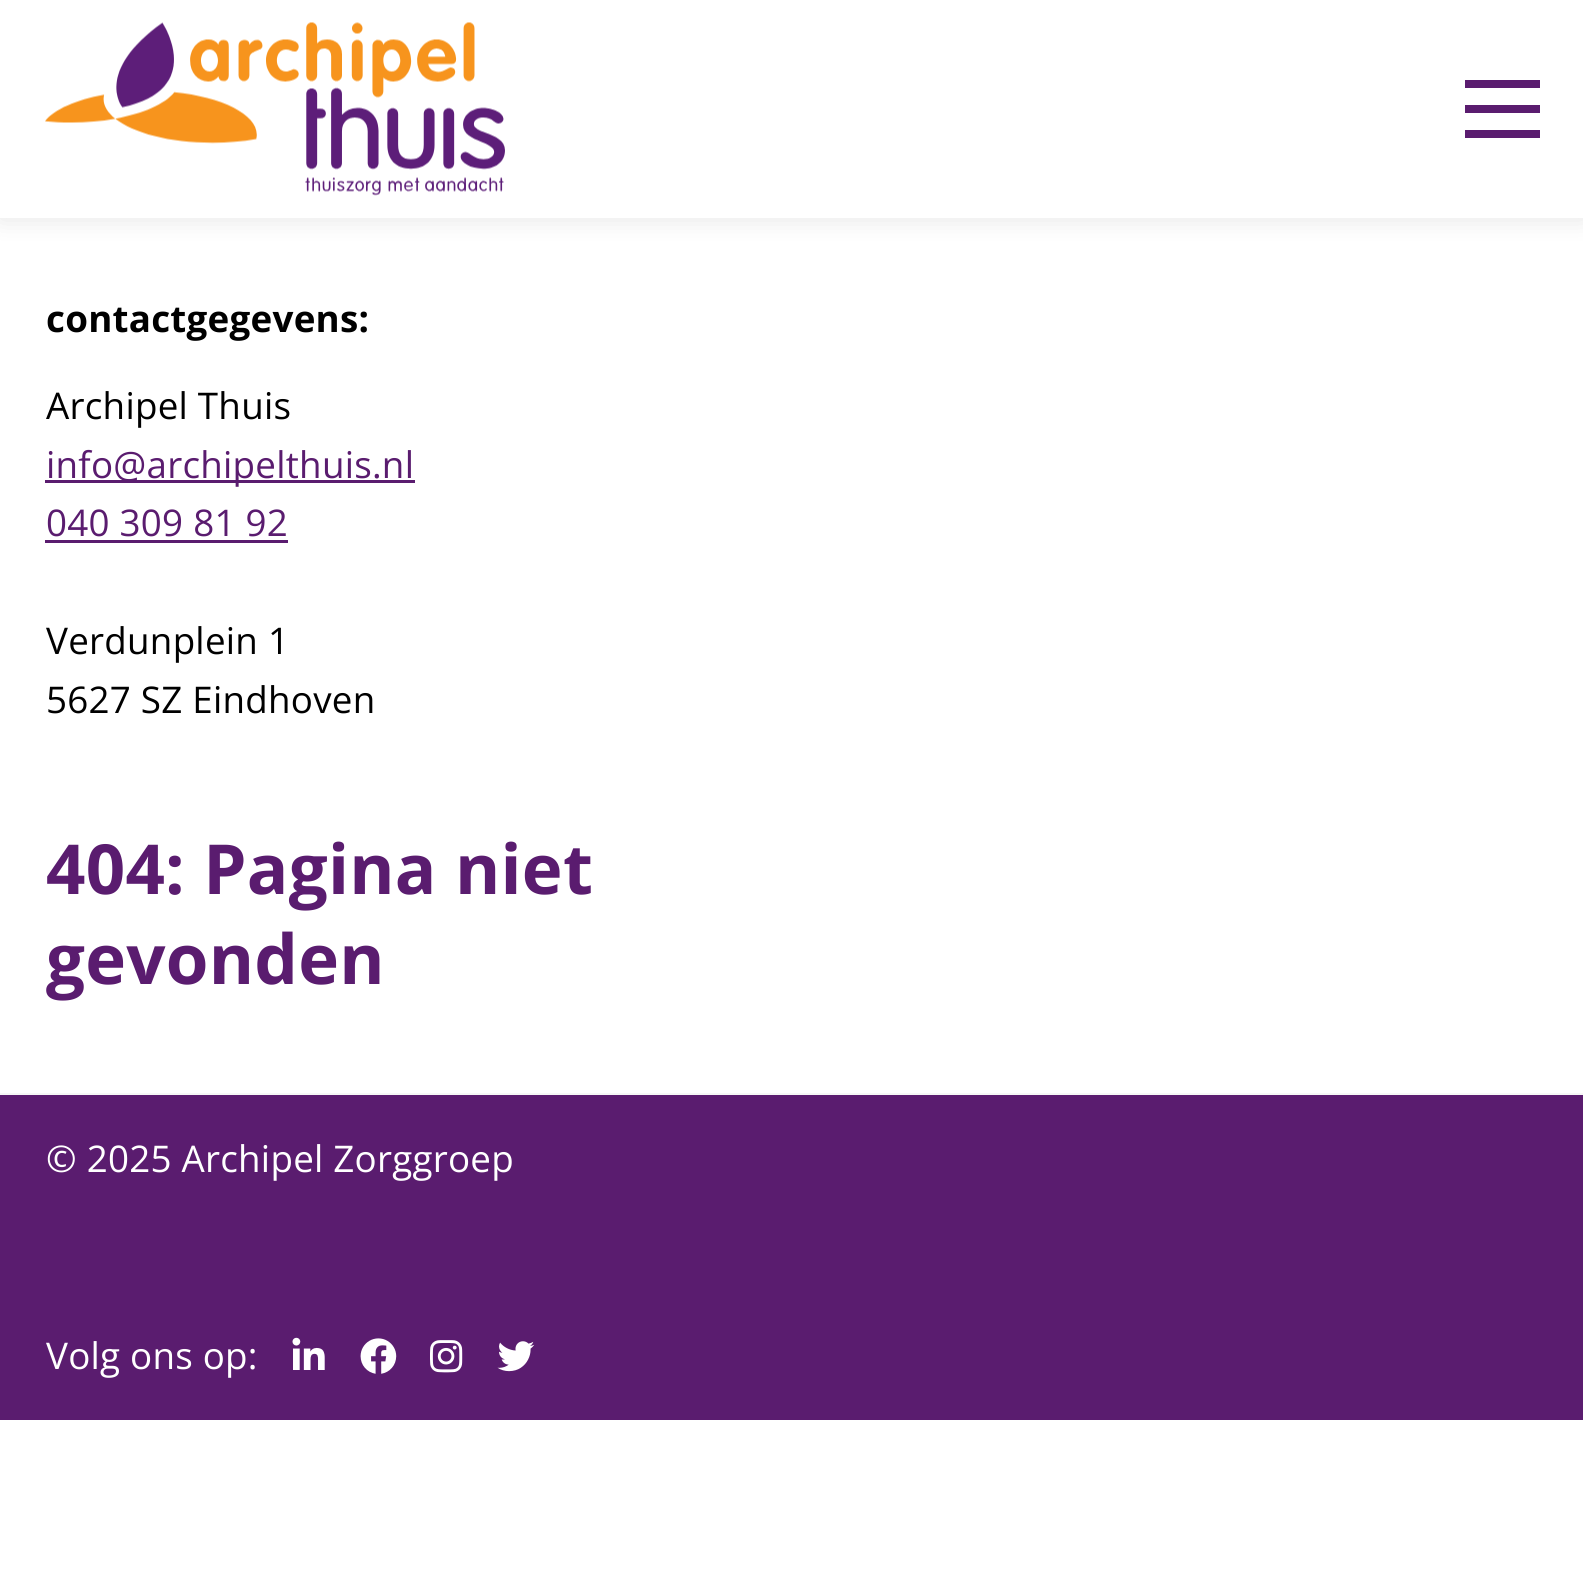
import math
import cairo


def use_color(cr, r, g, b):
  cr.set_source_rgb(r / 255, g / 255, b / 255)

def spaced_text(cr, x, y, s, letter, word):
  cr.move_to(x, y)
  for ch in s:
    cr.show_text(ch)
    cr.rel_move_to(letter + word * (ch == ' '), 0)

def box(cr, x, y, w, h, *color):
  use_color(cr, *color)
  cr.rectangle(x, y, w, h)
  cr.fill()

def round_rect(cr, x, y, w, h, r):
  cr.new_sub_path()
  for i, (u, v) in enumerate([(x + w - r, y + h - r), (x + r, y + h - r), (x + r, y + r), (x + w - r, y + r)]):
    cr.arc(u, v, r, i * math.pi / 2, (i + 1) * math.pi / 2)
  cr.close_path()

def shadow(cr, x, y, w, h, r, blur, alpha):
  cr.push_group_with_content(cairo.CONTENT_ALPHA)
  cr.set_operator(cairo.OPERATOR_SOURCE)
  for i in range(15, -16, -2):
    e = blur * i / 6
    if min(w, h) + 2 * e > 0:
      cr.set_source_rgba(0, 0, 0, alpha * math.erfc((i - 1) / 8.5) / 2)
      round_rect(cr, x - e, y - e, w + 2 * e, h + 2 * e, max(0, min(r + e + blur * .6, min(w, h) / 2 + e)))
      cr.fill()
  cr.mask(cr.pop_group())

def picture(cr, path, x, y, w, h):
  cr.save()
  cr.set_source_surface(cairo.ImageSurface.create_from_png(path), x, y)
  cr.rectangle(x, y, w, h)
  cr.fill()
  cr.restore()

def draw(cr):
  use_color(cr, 255, 255, 255)
  cr.paint()
  use_color(cr, 0, 0, 0)
  shadow(cr, 0, 3, 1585, 217, 0, 11.5, 0.1)
  box(cr, 0, 0, 1583, 218, 255, 255, 255)
  picture(cr, "img_01.png", 45, 22, 460, 174)
  box(cr, 1465, 105, 75, 8, 90, 28, 111)
  box(cr, 1465, 80, 75, 8, 90, 28, 111)
  box(cr, 1465, 130, 75, 8, 90, 28, 111)
  box(cr, 45, 480, 370, 3, 90, 28, 111)
  box(cr, 45, 540, 243, 3, 90, 28, 111)
  box(cr, 0, 1093, 1583, 2, 246, 246, 246)
  box(cr, 0, 1095, 1583, 325, 90, 28, 111)
  picture(cr, "img_02.png", 292, 1337, 33, 33)
  picture(cr, "img_03.png", 360, 1338, 37, 36)
  picture(cr, "img_04.png", 430, 1340, 33, 33)
  picture(cr, "img_05.png", 497, 1341, 38, 31)
  cr.select_font_face("Open Sans", cairo.FONT_SLANT_NORMAL, cairo.FONT_WEIGHT_BOLD)
  cr.set_font_size(36.75)
  use_color(cr, 0, 0, 0)
  spaced_text(cr, 46, 332, "contactgegevens:", 0.25, 0)
  cr.select_font_face("Open Sans")
  spaced_text(cr, 46, 419, "Archipel Thuis", 0.25, 0)
  use_color(cr, 90, 28, 111)
  spaced_text(cr, 46, 478, "info@archipelthuis.nl", 0.25, 0)
  spaced_text(cr, 46, 536, "040 309 81 92", 0.25, 0)
  use_color(cr, 0, 0, 0)
  spaced_text(cr, 46, 654, "Verdunplein 1", 0.25, 0)
  spaced_text(cr, 46, 713, "5627 SZ Eindhoven", 0.25, 0)
  cr.select_font_face("Open Sans", cairo.FONT_SLANT_NORMAL, cairo.FONT_WEIGHT_BOLD)
  cr.set_font_size(69)
  use_color(cr, 90, 28, 111)
  spaced_text(cr, 46, 894, "404: Pagina niet", 0.25, 0)
  spaced_text(cr, 46, 984, "gevonden", 0.25, 0)
  cr.select_font_face("Open Sans")
  cr.set_font_size(36.75)
  use_color(cr, 255, 255, 255)
  spaced_text(cr, 46, 1172, "© 2025 Archipel Zorggroep", 0.25, 0)
  spaced_text(cr, 46, 1369, "Volg ons op:", 0.25, 0)


surface = cairo.ImageSurface(cairo.FORMAT_RGB24, 1583, 1575)
cr = cairo.Context(surface)
options = cairo.FontOptions()
options.set_hint_metrics(cairo.HINT_METRICS_OFF)
options.set_hint_style(cairo.HINT_STYLE_NONE)
cr.set_font_options(options)
cr.set_miter_limit(4)
draw(cr)
surface.write_to_png("out.png")
